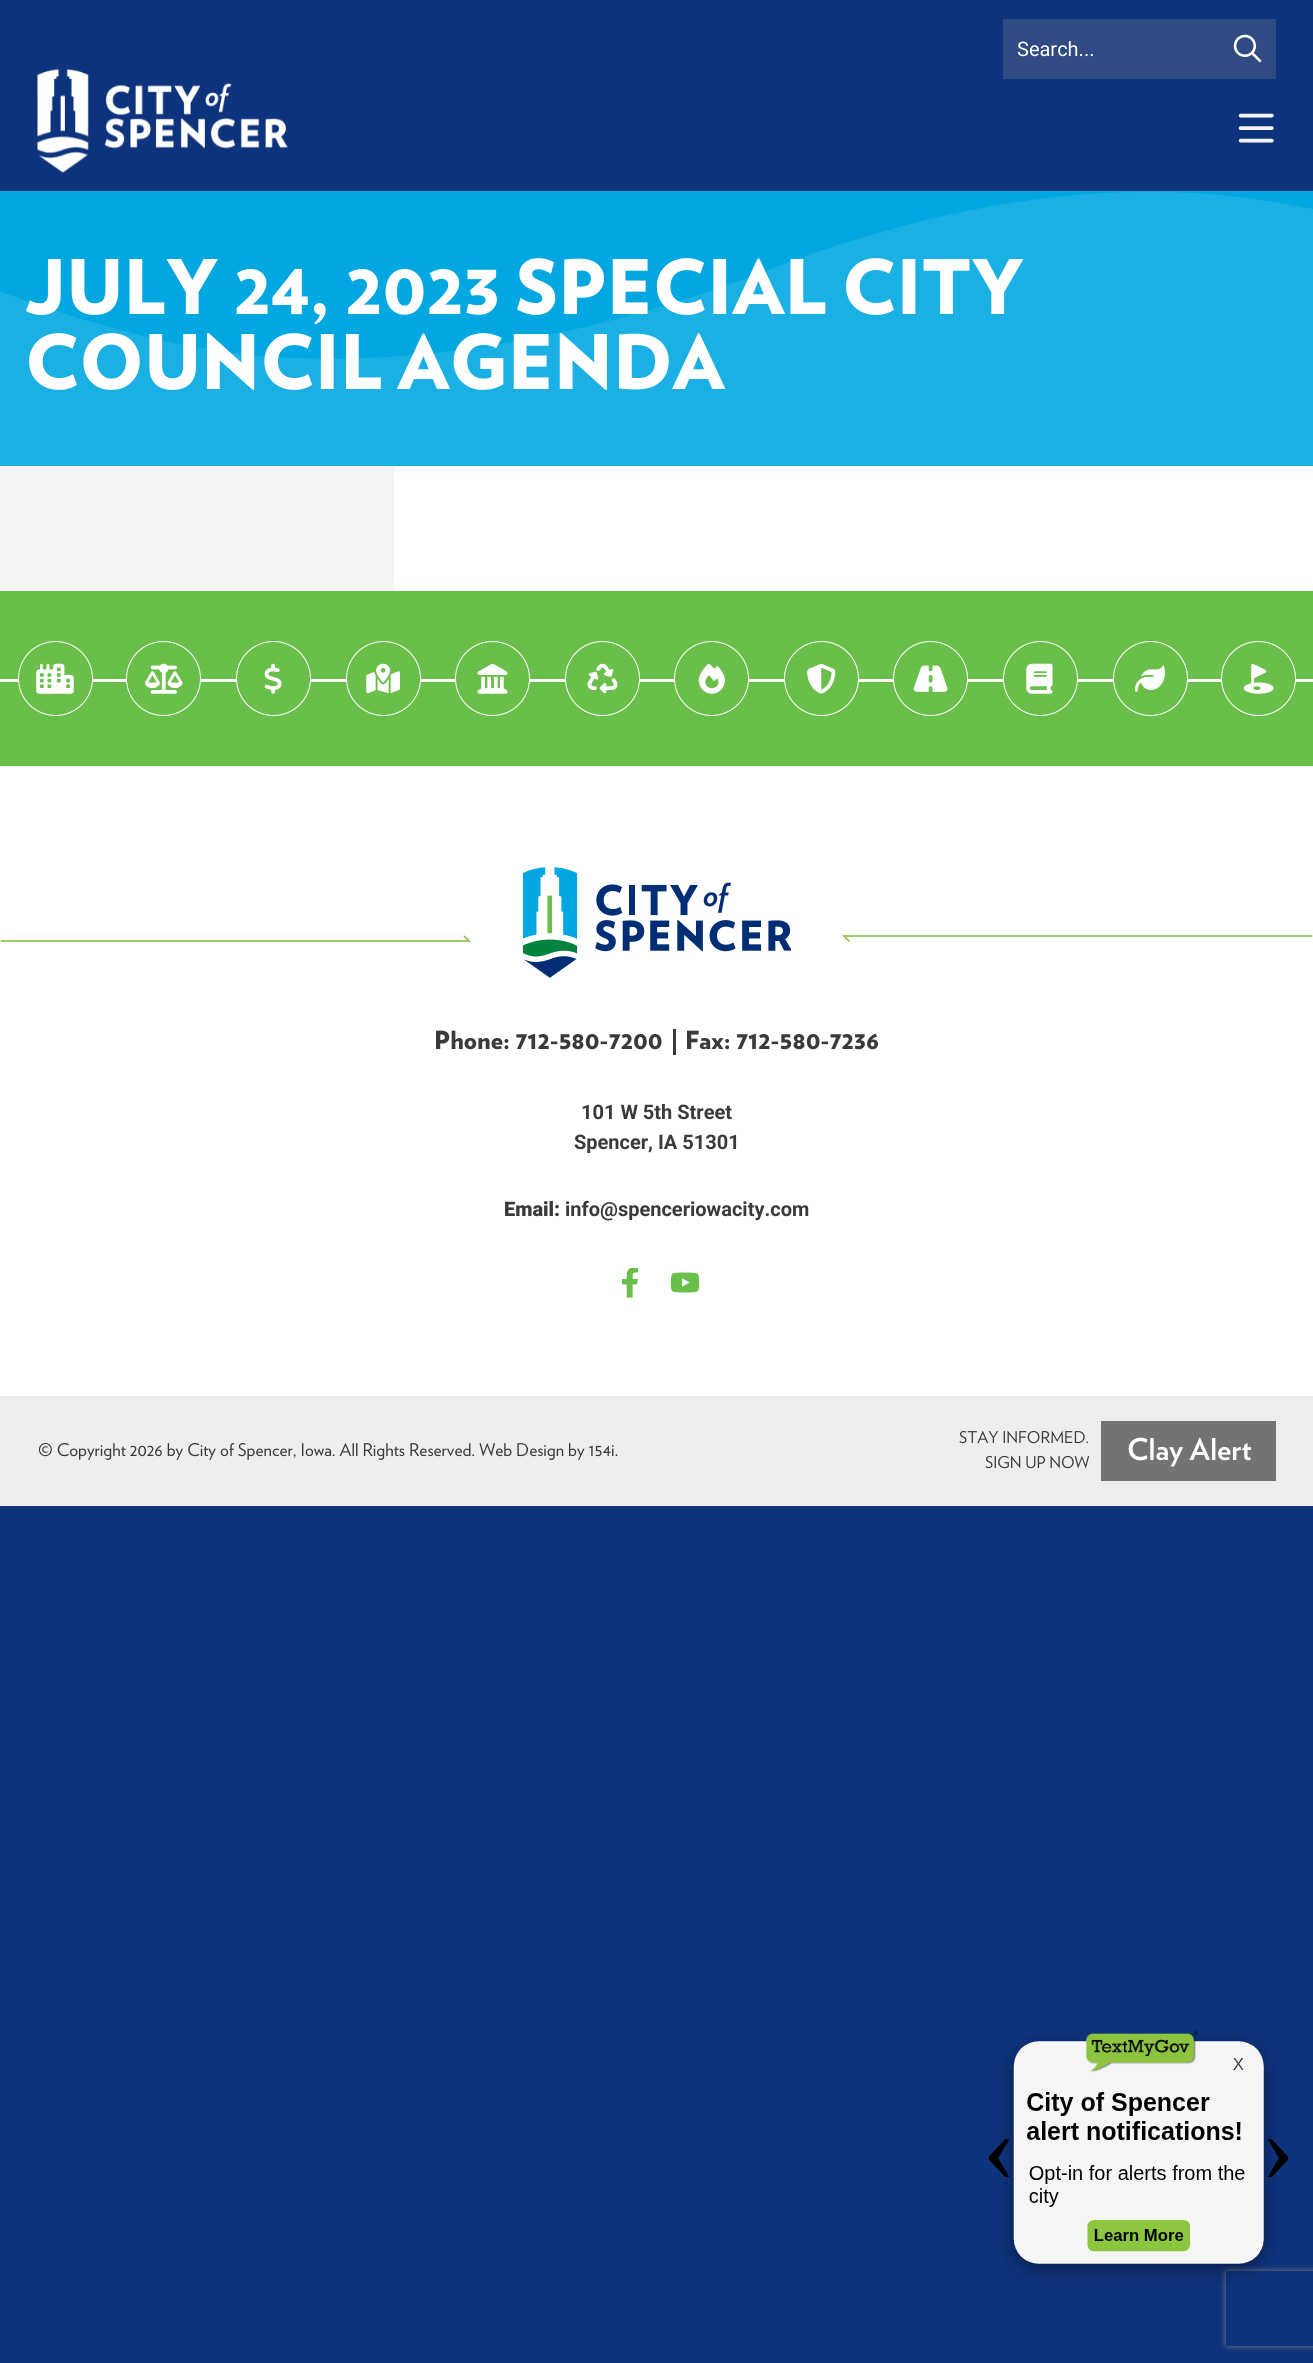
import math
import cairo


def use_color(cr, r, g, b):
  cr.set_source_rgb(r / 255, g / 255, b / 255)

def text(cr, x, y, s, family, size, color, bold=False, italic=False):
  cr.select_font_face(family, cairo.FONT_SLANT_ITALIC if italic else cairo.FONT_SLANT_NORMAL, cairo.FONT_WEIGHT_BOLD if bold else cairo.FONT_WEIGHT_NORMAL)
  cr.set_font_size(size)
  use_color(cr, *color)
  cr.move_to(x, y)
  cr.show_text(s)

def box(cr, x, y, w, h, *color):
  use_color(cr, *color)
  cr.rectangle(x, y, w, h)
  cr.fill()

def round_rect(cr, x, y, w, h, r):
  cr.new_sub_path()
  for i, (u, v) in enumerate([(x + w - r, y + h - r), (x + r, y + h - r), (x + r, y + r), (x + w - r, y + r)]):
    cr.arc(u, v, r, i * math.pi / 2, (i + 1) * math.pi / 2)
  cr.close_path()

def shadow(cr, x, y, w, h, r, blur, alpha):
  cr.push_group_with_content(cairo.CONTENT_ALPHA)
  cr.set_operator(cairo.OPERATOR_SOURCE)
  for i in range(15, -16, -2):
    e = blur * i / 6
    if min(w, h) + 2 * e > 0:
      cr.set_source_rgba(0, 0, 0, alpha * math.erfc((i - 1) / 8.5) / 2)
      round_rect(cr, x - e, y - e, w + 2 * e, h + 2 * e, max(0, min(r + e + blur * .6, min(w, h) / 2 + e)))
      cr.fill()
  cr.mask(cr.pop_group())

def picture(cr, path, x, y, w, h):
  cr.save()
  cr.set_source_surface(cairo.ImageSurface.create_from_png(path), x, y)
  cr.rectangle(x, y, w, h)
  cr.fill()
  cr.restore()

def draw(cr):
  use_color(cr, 14, 51, 125)
  cr.paint()
  box(cr, 1003, 19, 273, 60, 48, 75, 131)
  picture(cr, "img_01.png", 1233, 34, 29, 29)
  picture(cr, "img_02.png", 1238, 113, 36, 30)
  picture(cr, "img_03.png", 37, 68, 251, 105)
  box(cr, 0, 191, 1313, 275, 0, 167, 225)
  picture(cr, "img_04.png", 0, 192, 1313, 274)
  box(cr, 0, 466, 394, 125, 244, 244, 244)
  box(cr, 394, 466, 919, 125, 255, 255, 255)
  box(cr, 0, 591, 1313, 175, 106, 191, 75)
  box(cr, 0, 679, 1313, 3, 255, 255, 255)
  use_color(cr, 106, 191, 75)
  cr.arc(55.5, 678.5, 37, 0, 2 * math.pi)
  cr.fill_preserve()
  use_color(cr, 255, 255, 255)
  cr.set_line_width(1)
  cr.stroke()
  picture(cr, "img_05.png", 36, 663, 38, 31)
  use_color(cr, 106, 191, 75)
  cr.arc(163.5, 678.5, 37, 0, 2 * math.pi)
  cr.fill_preserve()
  use_color(cr, 255, 255, 255)
  cr.stroke()
  picture(cr, "img_06.png", 145, 663, 38, 31)
  use_color(cr, 106, 191, 75)
  cr.arc(273.5, 678.5, 37, 0, 2 * math.pi)
  cr.fill_preserve()
  use_color(cr, 255, 255, 255)
  cr.stroke()
  picture(cr, "img_07.png", 264, 663, 18, 31)
  use_color(cr, 106, 191, 75)
  cr.arc(383.5, 678.5, 37, 0, 2 * math.pi)
  cr.fill_preserve()
  use_color(cr, 255, 255, 255)
  cr.stroke()
  picture(cr, "img_08.png", 366, 663, 34, 31)
  use_color(cr, 106, 191, 75)
  cr.arc(492.5, 678.5, 37, 0, 2 * math.pi)
  cr.fill_preserve()
  use_color(cr, 255, 255, 255)
  cr.stroke()
  picture(cr, "img_09.png", 477, 663, 31, 31)
  use_color(cr, 106, 191, 75)
  cr.arc(602.5, 678.5, 37, 0, 2 * math.pi)
  cr.fill_preserve()
  use_color(cr, 255, 255, 255)
  cr.stroke()
  picture(cr, "img_10.png", 587, 663, 31, 31)
  use_color(cr, 106, 191, 75)
  cr.arc(711.5, 678.5, 37, 0, 2 * math.pi)
  cr.fill_preserve()
  use_color(cr, 255, 255, 255)
  cr.stroke()
  picture(cr, "img_11.png", 698, 663, 27, 31)
  use_color(cr, 106, 191, 75)
  cr.arc(821.5, 678.5, 37, 0, 2 * math.pi)
  cr.fill_preserve()
  use_color(cr, 255, 255, 255)
  cr.stroke()
  picture(cr, "img_12.png", 807, 663, 29, 31)
  use_color(cr, 106, 191, 75)
  cr.arc(930.5, 678.5, 37, 0, 2 * math.pi)
  cr.fill_preserve()
  use_color(cr, 255, 255, 255)
  cr.stroke()
  picture(cr, "img_13.png", 913, 665, 35, 27)
  use_color(cr, 106, 191, 75)
  cr.arc(1040.5, 678.5, 37, 0, 2 * math.pi)
  cr.fill_preserve()
  use_color(cr, 255, 255, 255)
  cr.stroke()
  picture(cr, "img_14.png", 1026, 663, 27, 31)
  use_color(cr, 106, 191, 75)
  cr.arc(1150.5, 678.5, 37, 0, 2 * math.pi)
  cr.fill_preserve()
  use_color(cr, 255, 255, 255)
  cr.stroke()
  picture(cr, "img_15.png", 1135, 665, 30, 27)
  use_color(cr, 106, 191, 75)
  cr.arc(1258.5, 678.5, 37, 0, 2 * math.pi)
  cr.fill_preserve()
  use_color(cr, 255, 255, 255)
  cr.stroke()
  picture(cr, "img_16.png", 1243, 663, 31, 31)
  box(cr, 0, 766, 1313, 630, 255, 255, 255)
  cr.new_path()
  cr.move_to(1.5, 941)
  cr.line_to(469, 941)
  cr.line_to(464.5, 936.5)
  use_color(cr, 147, 195, 80)
  cr.set_line_width(1.8)
  cr.set_line_cap(cairo.LINE_CAP_ROUND)
  cr.stroke()
  picture(cr, "img_17.png", 523, 867, 268, 111)
  cr.new_path()
  cr.move_to(1311.5, 936)
  cr.line_to(844, 936)
  cr.line_to(849, 941)
  cr.stroke()
  box(cr, 673, 1029, 3, 26, 57, 58, 57)
  picture(cr, "img_18.png", 621, 1268, 18, 30)
  picture(cr, "img_19.png", 670, 1272, 30, 21)
  box(cr, 0, 1396, 1313, 110, 239, 238, 238)
  box(cr, 1101, 1421, 175, 60, 115, 115, 115)
  cr.save()
  cr.set_fill_rule(cairo.FILL_RULE_EVEN_ODD)
  cr.new_path()
  cr.move_to(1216, 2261)
  cr.line_to(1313, 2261)
  cr.line_to(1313, 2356)
  cr.line_to(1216, 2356)
  cr.close_path()
  cr.move_to(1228.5, 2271)
  cr.line_to(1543.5, 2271)
  cr.curve_to(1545, 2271, 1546, 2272, 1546, 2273.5)
  cr.line_to(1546, 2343.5)
  cr.curve_to(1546, 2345, 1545, 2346, 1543.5, 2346)
  cr.line_to(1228.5, 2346)
  cr.curve_to(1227, 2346, 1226, 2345, 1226, 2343.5)
  cr.line_to(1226, 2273.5)
  cr.curve_to(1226, 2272, 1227, 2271, 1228.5, 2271)
  cr.close_path()
  cr.clip()
  use_color(cr, 128, 128, 128)
  shadow(cr, 1226, 2271, 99, 75, 2.5, 3, 1)
  cr.restore()
  picture(cr, "img_20.png", 989, 2031, 300, 252)
  text(cr, 1017, 56, "Search...", "Roboto", 20, (255, 255, 255))
  text(cr, 25, 314, "JULY 24, 2023 SPECIAL CITY", "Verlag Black", 75, (255, 255, 255))
  text(cr, 25, 389, "COUNCIL AGENDA", "Verlag Black", 75, (255, 255, 255))
  text(cr, 434, 1049, "Phone: 712-580-7200", "Verlag Black", 25, (57, 58, 57))
  text(cr, 685, 1049, "Fax: 712-580-7236", "Verlag Black", 25, (57, 58, 57))
  text(cr, 581, 1119, "101 W 5th Street", "Roboto", 20, (57, 58, 57), bold=True)
  text(cr, 574, 1149, "Spencer, IA 51301", "Roboto", 20, (57, 58, 57), bold=True)
  text(cr, 504, 1216, "Email:", "Roboto Black", 20, (57, 58, 57))
  text(cr, 565, 1216, "info@spenceriowacity.com", "Roboto", 20, (57, 58, 57), bold=True)
  text(cr, 38, 1456, "© Copyright 2026 by City of Spencer, Iowa. All Rights Reserved. Web Design by 154i.", "Verlag", 17.5, (57, 58, 57))
  text(cr, 959, 1443, "STAY INFORMED.", "Verlag", 16.25, (57, 58, 57))
  text(cr, 985, 1468, "SIGN UP NOW", "Verlag", 16.25, (57, 58, 57))
  text(cr, 1127, 1460, "Clay Alert", "Verlag", 30, (255, 255, 255), bold=True)


surface = cairo.ImageSurface(cairo.FORMAT_RGB24, 1313, 2363)
cr = cairo.Context(surface)
options = cairo.FontOptions()
options.set_hint_metrics(cairo.HINT_METRICS_OFF)
options.set_hint_style(cairo.HINT_STYLE_NONE)
cr.set_font_options(options)
cr.set_miter_limit(4)
draw(cr)
surface.write_to_png("out.png")
